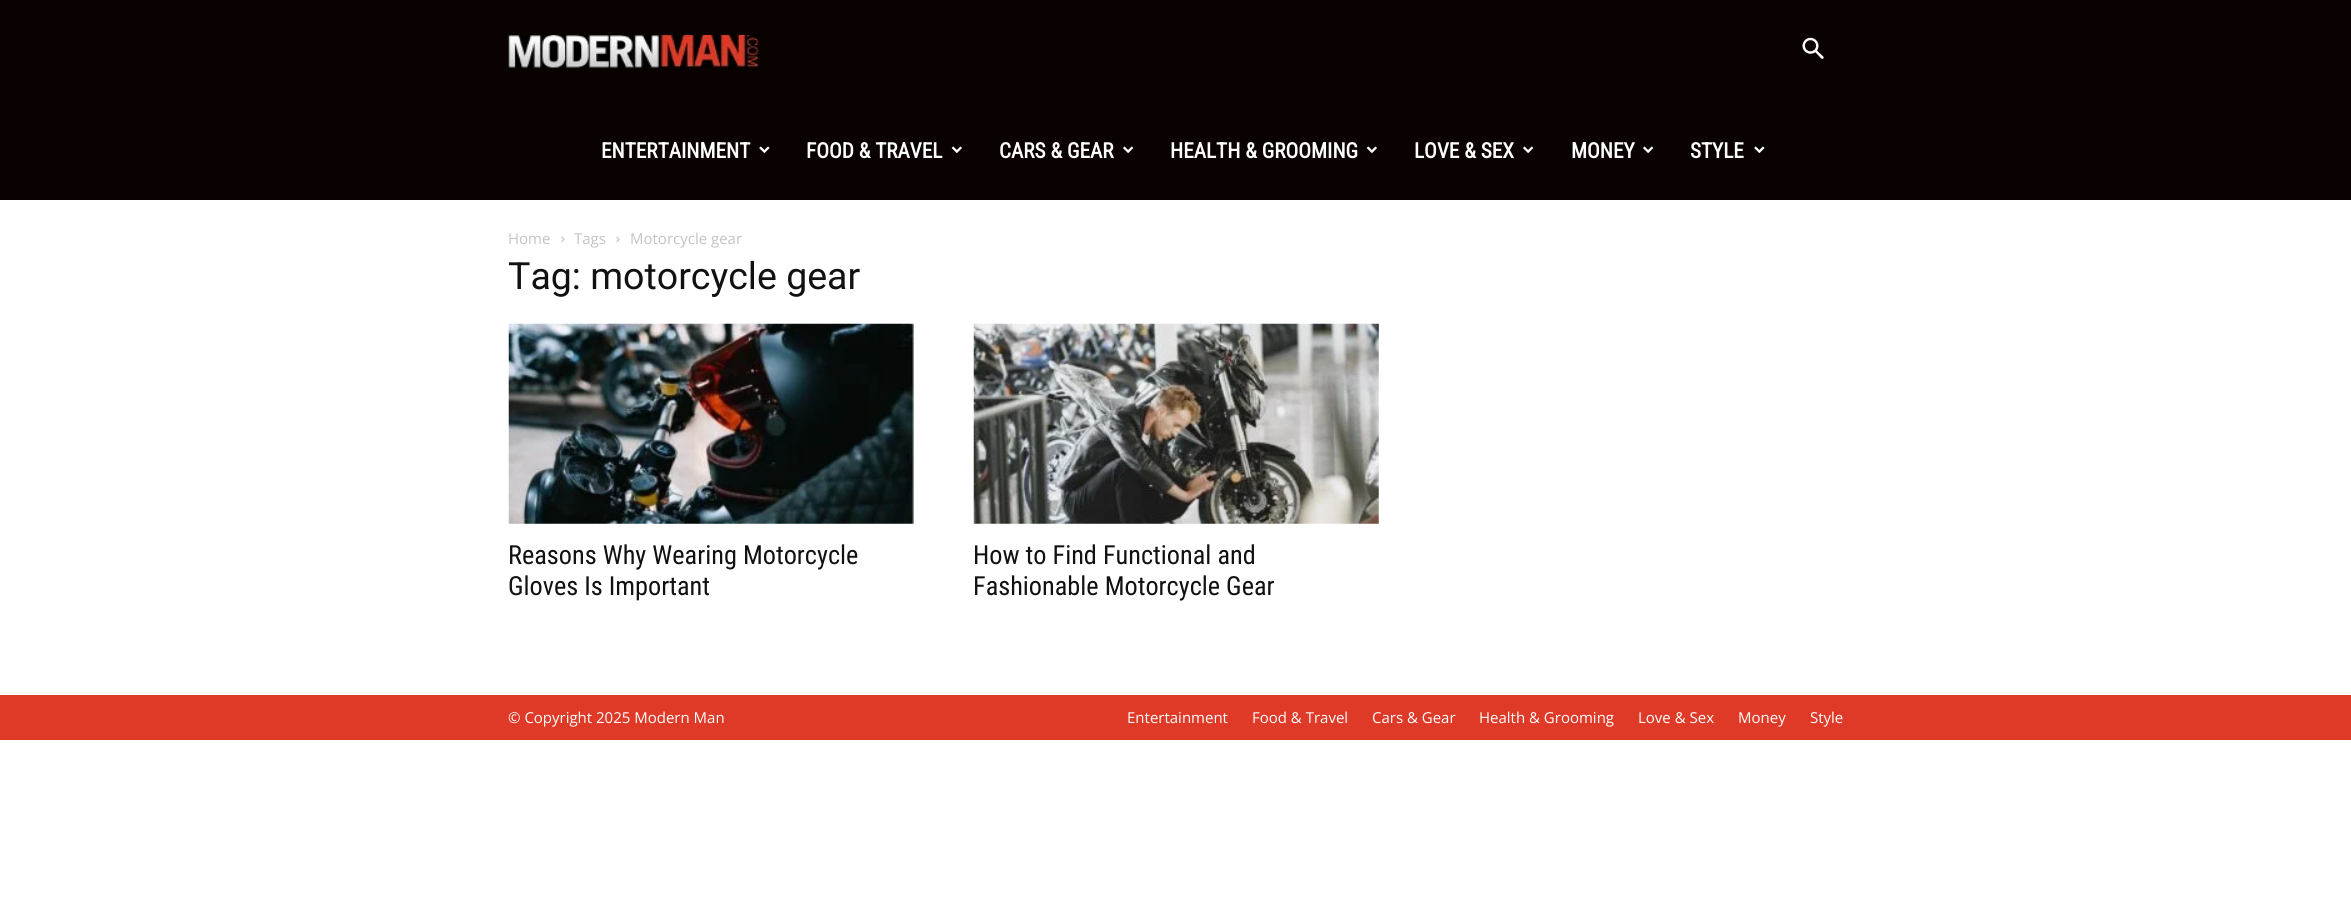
import math
import cairo


def use_color(cr, r, g, b):
  cr.set_source_rgb(r / 255, g / 255, b / 255)

def text(cr, x, y, s, family, size, color, bold=False, italic=False):
  cr.select_font_face(family, cairo.FONT_SLANT_ITALIC if italic else cairo.FONT_SLANT_NORMAL, cairo.FONT_WEIGHT_BOLD if bold else cairo.FONT_WEIGHT_NORMAL)
  cr.set_font_size(size)
  use_color(cr, *color)
  cr.move_to(x, y)
  cr.show_text(s)

def box(cr, x, y, w, h, *color):
  use_color(cr, *color)
  cr.rectangle(x, y, w, h)
  cr.fill()

def picture(cr, path, x, y, w, h):
  cr.save()
  cr.set_source_surface(cairo.ImageSurface.create_from_png(path), x, y)
  cr.rectangle(x, y, w, h)
  cr.fill()
  cr.restore()

def draw(cr):
  use_color(cr, 255, 255, 255)
  cr.paint()
  box(cr, 0, 0, 2351, 200, 10, 1, 1)
  picture(cr, "img_01.png", 1802, 37, 22, 22)
  picture(cr, "img_02.png", 508, 35, 251, 33)
  picture(cr, "img_03.png", 759, 146, 11, 7)
  picture(cr, "img_04.png", 951, 146, 11, 7)
  picture(cr, "img_05.png", 1123, 146, 11, 7)
  picture(cr, "img_04.png", 1366, 146, 11, 7)
  picture(cr, "img_05.png", 1523, 146, 11, 7)
  picture(cr, "img_05.png", 1643, 146, 11, 7)
  picture(cr, "img_03.png", 1754, 146, 11, 7)
  picture(cr, "img_06.png", 561, 236, 4, 7)
  picture(cr, "img_06.png", 616, 236, 4, 7)
  picture(cr, "img_07.png", 508, 323, 406, 201)
  picture(cr, "img_08.png", 973, 323, 406, 201)
  box(cr, 0, 695, 2351, 45, 223, 58, 39)
  text(cr, 601, 158, "ENTERTAINMENT", "Roboto Condensed", 21.25, (255, 255, 255), bold=True)
  text(cr, 806, 158, "FOOD & TRAVEL", "Roboto Condensed", 21.25, (255, 255, 255), bold=True)
  text(cr, 999, 158, "CARS & GEAR", "Roboto Condensed", 21.25, (255, 255, 255), bold=True)
  text(cr, 1170, 158, "HEALTH & GROOMING", "Roboto Condensed", 21.25, (255, 255, 255), bold=True)
  text(cr, 1414, 158, "LOVE & SEX", "Roboto Condensed", 21.25, (255, 255, 255), bold=True)
  text(cr, 1571, 158, "MONEY", "Roboto Condensed", 21.25, (255, 255, 255), bold=True)
  text(cr, 1690, 158, "STYLE", "Roboto Condensed", 21.25, (255, 255, 255), bold=True)
  text(cr, 508, 244, "Home", "Open Sans", 15, (195, 195, 195))
  text(cr, 574, 244, "Tags", "Open Sans", 15, (195, 195, 195))
  text(cr, 630, 244, "Motorcycle gear", "Open Sans", 15, (195, 195, 195))
  text(cr, 508, 289, "Tag: motorcycle gear", "Roboto", 37.5, (17, 17, 17))
  text(cr, 508, 564, "Reasons Why Wearing Motorcycle", "Roboto Condensed", 26.25, (17, 17, 17))
  text(cr, 508, 595, "Gloves Is Important", "Roboto Condensed", 26.25, (17, 17, 17))
  text(cr, 973, 564, "How to Find Functional and", "Roboto Condensed", 26.25, (17, 17, 17))
  text(cr, 973, 595, "Fashionable Motorcycle Gear", "Roboto Condensed", 26.25, (17, 17, 17))
  text(cr, 508, 723, "© Copyright 2025 Modern Man", "Open Sans", 15, (255, 255, 255))
  text(cr, 1127, 723, "Entertainment", "Open Sans", 15, (255, 255, 255))
  text(cr, 1252, 723, "Food & Travel", "Open Sans", 15, (255, 255, 255))
  text(cr, 1372, 723, "Cars & Gear", "Open Sans", 15, (255, 255, 255))
  text(cr, 1479, 723, "Health & Grooming", "Open Sans", 15, (255, 255, 255))
  text(cr, 1638, 723, "Love & Sex", "Open Sans", 15, (255, 255, 255))
  text(cr, 1738, 723, "Money", "Open Sans", 15, (255, 255, 255))
  text(cr, 1810, 723, "Style", "Open Sans", 15, (255, 255, 255))


surface = cairo.ImageSurface(cairo.FORMAT_RGB24, 2351, 902)
cr = cairo.Context(surface)
options = cairo.FontOptions()
options.set_hint_metrics(cairo.HINT_METRICS_OFF)
options.set_hint_style(cairo.HINT_STYLE_NONE)
cr.set_font_options(options)
cr.set_miter_limit(4)
draw(cr)
surface.write_to_png("out.png")
